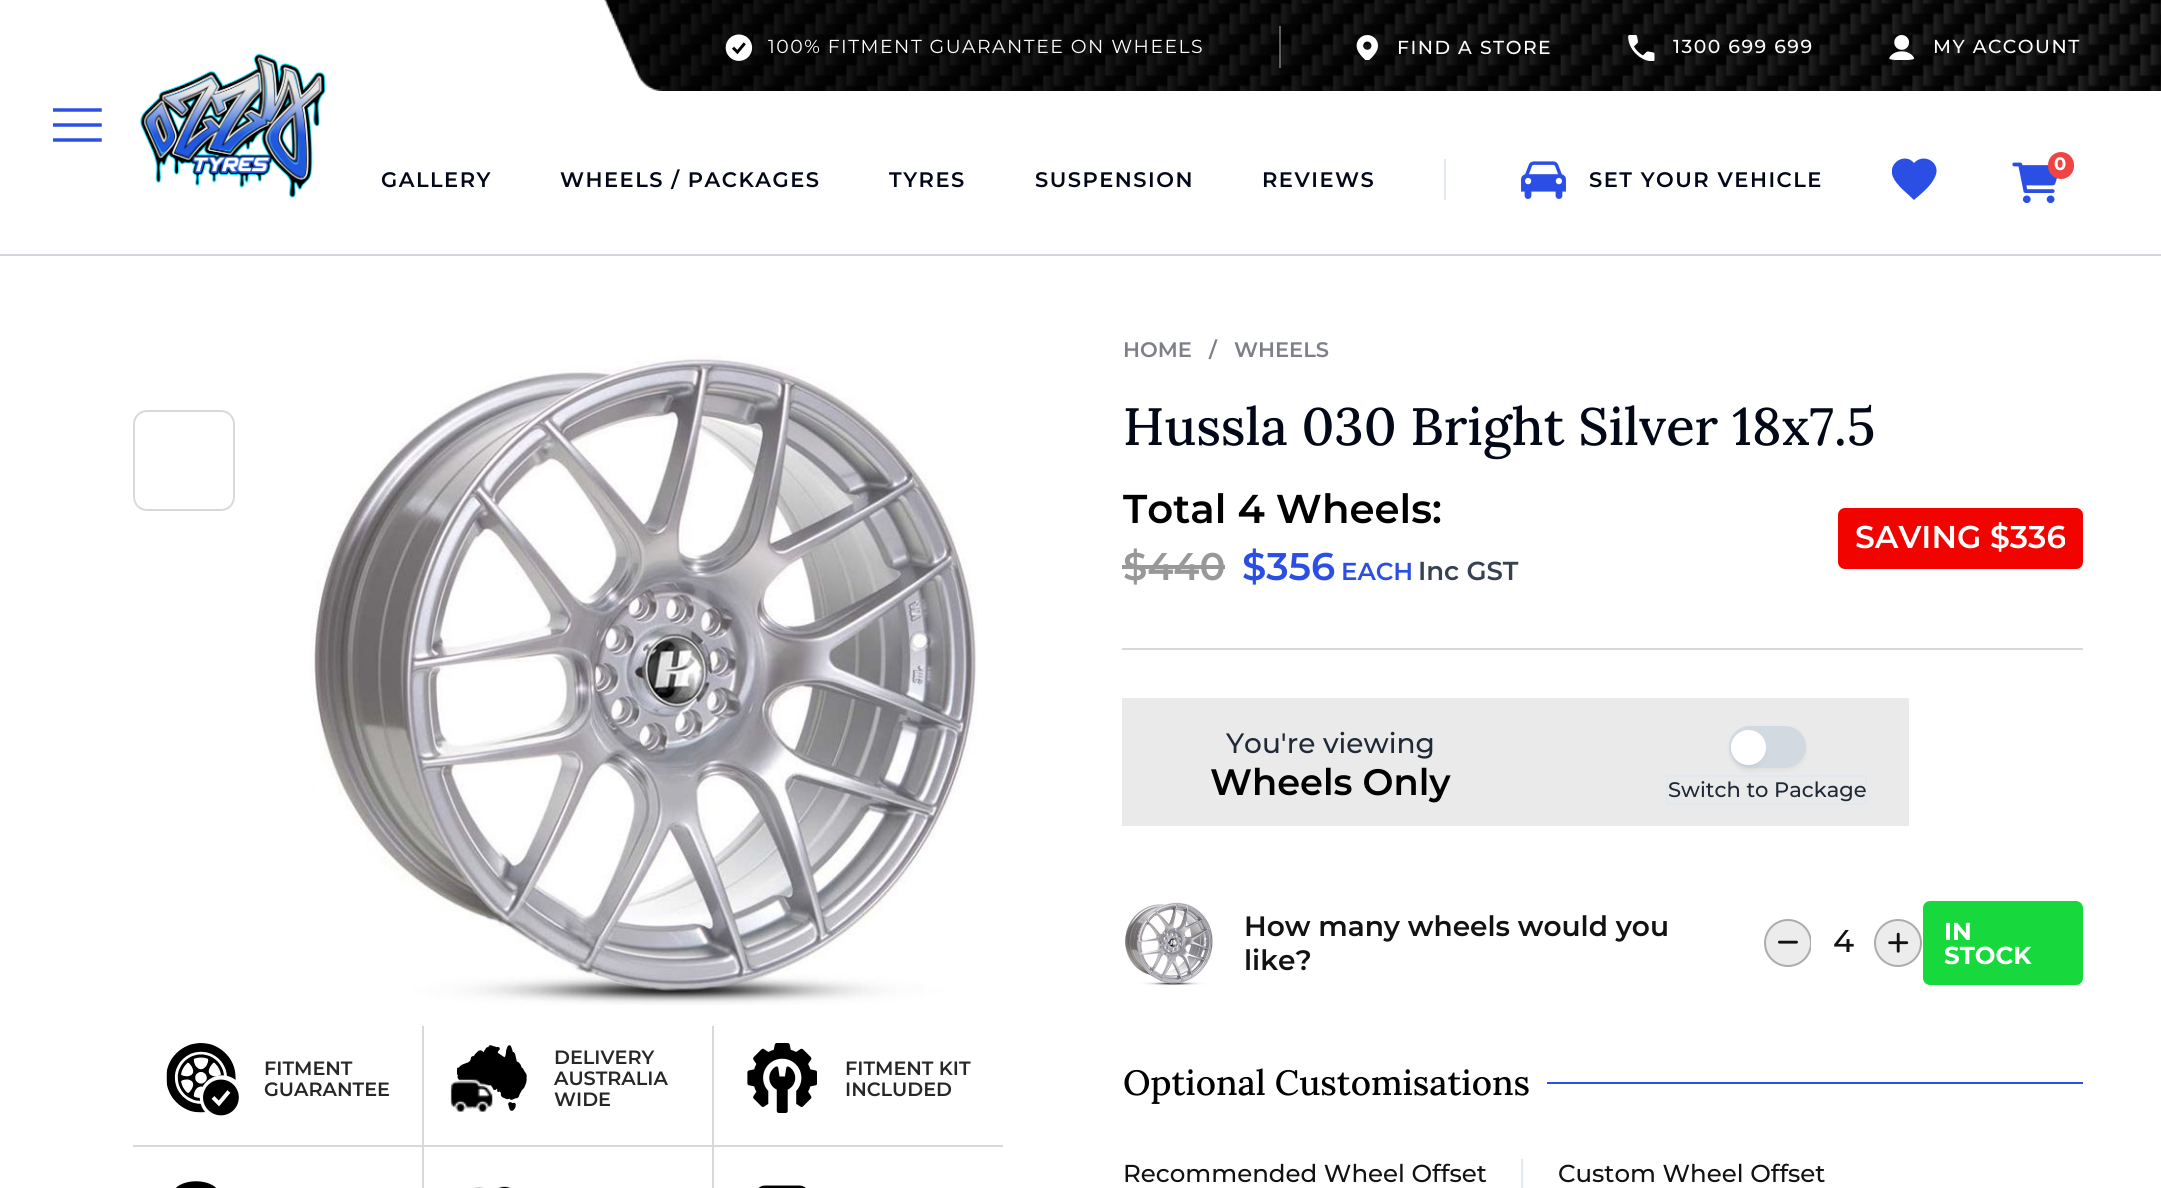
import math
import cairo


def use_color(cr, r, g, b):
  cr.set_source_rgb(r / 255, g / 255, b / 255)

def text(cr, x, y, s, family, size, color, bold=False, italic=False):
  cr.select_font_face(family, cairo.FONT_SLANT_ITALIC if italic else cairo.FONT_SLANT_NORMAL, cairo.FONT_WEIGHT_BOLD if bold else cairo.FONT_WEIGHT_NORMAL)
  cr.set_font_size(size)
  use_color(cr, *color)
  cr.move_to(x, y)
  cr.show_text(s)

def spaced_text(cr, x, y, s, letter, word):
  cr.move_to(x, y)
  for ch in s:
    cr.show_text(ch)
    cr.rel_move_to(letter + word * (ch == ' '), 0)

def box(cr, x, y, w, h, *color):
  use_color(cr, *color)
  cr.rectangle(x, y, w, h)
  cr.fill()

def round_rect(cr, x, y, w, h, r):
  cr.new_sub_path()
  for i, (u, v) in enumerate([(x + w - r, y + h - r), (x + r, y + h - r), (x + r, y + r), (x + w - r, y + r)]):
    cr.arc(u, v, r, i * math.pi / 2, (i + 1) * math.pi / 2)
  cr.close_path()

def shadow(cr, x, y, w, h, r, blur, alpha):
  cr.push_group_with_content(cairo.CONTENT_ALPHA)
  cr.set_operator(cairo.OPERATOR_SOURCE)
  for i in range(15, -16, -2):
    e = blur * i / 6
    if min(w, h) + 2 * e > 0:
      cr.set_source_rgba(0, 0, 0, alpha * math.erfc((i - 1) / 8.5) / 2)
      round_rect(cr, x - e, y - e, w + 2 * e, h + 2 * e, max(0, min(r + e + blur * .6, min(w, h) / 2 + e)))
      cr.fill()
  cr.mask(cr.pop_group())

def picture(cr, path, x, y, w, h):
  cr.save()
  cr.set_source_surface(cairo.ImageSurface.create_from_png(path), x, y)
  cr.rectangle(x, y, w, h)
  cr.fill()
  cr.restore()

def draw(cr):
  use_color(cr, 255, 255, 255)
  cr.paint()
  box(cr, 0, 254, 2161, 2, 209, 213, 219)
  cr.save()
  cr.rectangle(53, 100, 49, 51)
  cr.clip()
  cr.new_path()
  cr.move_to(54, 140)
  cr.line_to(100, 140)
  cr.move_to(54, 125)
  cr.line_to(100, 125)
  cr.move_to(54, 110)
  cr.line_to(100, 110)
  use_color(cr, 43, 78, 229)
  cr.set_line_width(3.5)
  cr.set_line_cap(cairo.LINE_CAP_SQUARE)
  cr.set_line_join(cairo.LINE_JOIN_ROUND)
  cr.stroke()
  cr.restore()
  picture(cr, "img_01.png", 140, 53, 186, 145)
  picture(cr, "img_02.png", 604, 0, 1557, 91)
  picture(cr, "img_03.png", 725, 34, 28, 27)
  cr.set_source_rgba(1, 1, 1, 0.35)
  cr.rectangle(1279, 26, 2, 42)
  cr.fill()
  picture(cr, "img_04.png", 1356, 35, 22, 25)
  picture(cr, "img_05.png", 1628, 35, 27, 26)
  picture(cr, "img_06.png", 1889, 35, 25, 25)
  box(cr, 1444, 159, 2, 41, 226, 232, 240)
  picture(cr, "img_07.png", 1521, 161, 45, 38)
  cr.save()
  cr.rectangle(1892, 158, 45, 43)
  cr.clip()
  use_color(cr, 43, 78, 229)
  cr.new_path()
  cr.move_to(1914, 200)
  cr.curve_to(1907, 193, 1897, 186, 1893, 177)
  cr.curve_to(1887, 163, 1905, 152, 1914, 163)
  cr.curve_to(1924, 152, 1942, 163, 1935, 177)
  cr.curve_to(1931, 186, 1922, 193, 1914, 200)
  cr.close_path()
  cr.fill()
  cr.restore()
  picture(cr, "img_08.png", 2012, 162, 45, 42)
  use_color(cr, 239, 68, 68)
  round_rect(cr, 2048, 152, 26, 27, 13)
  cr.fill()
  round_rect(cr, 134, 411, 100, 99, 13)
  use_color(cr, 217, 217, 217)
  cr.stroke()
  picture(cr, "img_09.png", 310, 354, 667, 651)
  box(cr, 422, 1026, 2, 120, 217, 217, 217)
  box(cr, 133, 1145, 291, 2, 217, 217, 217)
  picture(cr, "img_10.png", 166, 1043, 70, 70)
  picture(cr, "img_11.png", 199, 1075, 40, 41)
  box(cr, 712, 1026, 2, 120, 217, 217, 217)
  box(cr, 424, 1145, 579, 2, 217, 217, 217)
  picture(cr, "img_12.png", 457, 1045, 70, 66)
  picture(cr, "img_13.png", 450, 1079, 43, 33)
  picture(cr, "img_14.png", 747, 1043, 70, 70)
  box(cr, 422, 1146, 2, 42, 217, 217, 217)
  picture(cr, "img_15.png", 176, 1181, 40, 7)
  box(cr, 712, 1146, 2, 42, 217, 217, 217)
  picture(cr, "img_16.png", 474, 1186, 37, 2)
  picture(cr, "img_17.png", 758, 1185, 48, 3)
  box(cr, 1122, 648, 961, 2, 217, 217, 217)
  box(cr, 1122, 565, 103, 4, 152, 152, 152)
  use_color(cr, 241, 4, 0)
  round_rect(cr, 1838, 508, 245, 61, 7)
  cr.fill()
  box(cr, 1122, 698, 787, 128, 234, 234, 234)
  use_color(cr, 0, 0, 0)
  shadow(cr, 1729, 728, 77, 42, 21, 2, 0.05)
  use_color(cr, 211, 217, 225)
  round_rect(cr, 1729, 726, 77, 42, 21)
  cr.fill()
  cr.rectangle(1667, 776, 199, 28)
  use_color(cr, 226, 232, 240)
  cr.stroke()
  use_color(cr, 0, 0, 0)
  shadow(cr, 1738, 744, 21, 21, 10.5, 5, 0.1)
  use_color(cr, 255, 255, 255)
  cr.arc(1748.5, 747.5, 17.5, 0, 2 * math.pi)
  cr.fill()
  picture(cr, "img_18.png", 1125, 902, 88, 84)
  picture(cr, "img_19.png", 1764, 919, 47, 48)
  picture(cr, "img_20.png", 1874, 919, 48, 48)
  use_color(cr, 23, 217, 61)
  round_rect(cr, 1923, 901, 160, 84, 7)
  cr.fill()
  box(cr, 1547, 1082, 536, 2, 43, 78, 229)
  box(cr, 1521, 1159, 2, 29, 226, 232, 240)
  cr.select_font_face("Montserrat")
  cr.set_font_size(18.8)
  use_color(cr, 255, 255, 255)
  spaced_text(cr, 768, 53, "100% FITMENT GUARANTEE ON WHEELS", 1.5, 0)
  cr.select_font_face("Montserrat Medium")
  spaced_text(cr, 1397, 54, "FIND A STORE", 1.5, 0)
  spaced_text(cr, 1673, 53, "1300 699 699", 1.5, 0)
  spaced_text(cr, 1933, 53, "MY ACCOUNT", 1.5, 0)
  cr.select_font_face("Montserrat SemiBold")
  cr.set_font_size(21)
  use_color(cr, 2, 8, 23)
  spaced_text(cr, 381, 187, "GALLERY", 1.5, 0)
  spaced_text(cr, 560, 187, "WHEELS / PACKAGES", 1.5, 0)
  spaced_text(cr, 889, 187, "TYRES", 1.5, 0)
  spaced_text(cr, 1035, 187, "SUSPENSION", 1.5, 0)
  spaced_text(cr, 1262, 187, "REVIEWS", 1.5, 0)
  spaced_text(cr, 1589, 187, "SET YOUR VEHICLE", 1.5, 0)
  cr.select_font_face("Montserrat", cairo.FONT_SLANT_NORMAL, cairo.FONT_WEIGHT_BOLD)
  cr.set_font_size(18)
  use_color(cr, 255, 255, 255)
  spaced_text(cr, 2054, 170, "0", 1.5, 0)
  text(cr, 264, 1075, "FITMENT", "Montserrat SemiBold", 19.25, (39, 39, 39))
  text(cr, 264, 1096, "GUARANTEE", "Montserrat SemiBold", 19.25, (39, 39, 39))
  text(cr, 554, 1064, "DELIVERY", "Montserrat SemiBold", 19.25, (39, 39, 39))
  text(cr, 554, 1085, "AUSTRALIA", "Montserrat SemiBold", 19.25, (39, 39, 39))
  text(cr, 554, 1106, "WIDE", "Montserrat SemiBold", 19.25, (39, 39, 39))
  text(cr, 845, 1075, "FITMENT KIT", "Montserrat SemiBold", 19.25, (39, 39, 39))
  text(cr, 845, 1096, "INCLUDED", "Montserrat SemiBold", 19.25, (39, 39, 39))
  text(cr, 1123, 357, "HOME", "Montserrat SemiBold", 21, (125, 128, 136))
  text(cr, 1209, 357, "/", "Montserrat SemiBold", 21, (125, 128, 136))
  text(cr, 1234, 357, "WHEELS", "Montserrat SemiBold", 21, (125, 128, 136))
  text(cr, 1123, 445, "Hussla 030 Bright Silver 18x7.5", "Lora Medium", 52.5, (2, 8, 23))
  text(cr, 1123, 523, "Total 4 Wheels:", "Montserrat SemiBold", 40.25, (0, 0, 0))
  text(cr, 1123, 580, "$440", "Montserrat SemiBold", 38.5, (152, 152, 152))
  text(cr, 1242, 580, "$356", "Montserrat SemiBold", 38.5, (43, 78, 229))
  text(cr, 1341, 580, "EACH", "Montserrat SemiBold", 24.5, (43, 78, 229))
  text(cr, 1418, 580, "Inc GST", "Montserrat SemiBold", 26, (55, 65, 81))
  text(cr, 1855, 548, "SAVING $336", "Montserrat SemiBold", 31.5, (255, 255, 255))
  text(cr, 1226, 753, "You're viewing", "Montserrat Medium", 28, (31, 41, 55))
  text(cr, 1210, 795, "Wheels Only", "Montserrat SemiBold", 36.75, (0, 0, 0))
  text(cr, 1668, 797, "Switch to Package", "Montserrat Medium", 21, (31, 41, 55))
  text(cr, 1244, 936, "How many wheels would you", "Montserrat SemiBold", 28, (18, 18, 18))
  text(cr, 1244, 970, "like?", "Montserrat SemiBold", 28, (18, 18, 18))
  text(cr, 1833, 952, "4", "Montserrat Medium", 31.5, (18, 18, 18))
  text(cr, 1944, 940, "IN", "Montserrat", 24.5, (255, 255, 255), bold=True)
  text(cr, 1944, 964, "STOCK", "Montserrat", 24.5, (255, 255, 255), bold=True)
  text(cr, 1123, 1095, "Optional Customisations", "Lora Medium", 35, (0, 0, 0))
  text(cr, 1123, 1182, "Recommended Wheel Offset", "Montserrat Medium", 24.5, (18, 18, 18))
  text(cr, 1558, 1182, "Custom Wheel Offset", "Montserrat Medium", 24.5, (18, 18, 18))


surface = cairo.ImageSurface(cairo.FORMAT_RGB24, 2161, 1188)
cr = cairo.Context(surface)
options = cairo.FontOptions()
options.set_hint_metrics(cairo.HINT_METRICS_OFF)
options.set_hint_style(cairo.HINT_STYLE_NONE)
cr.set_font_options(options)
cr.set_miter_limit(4)
draw(cr)
surface.write_to_png("out.png")
